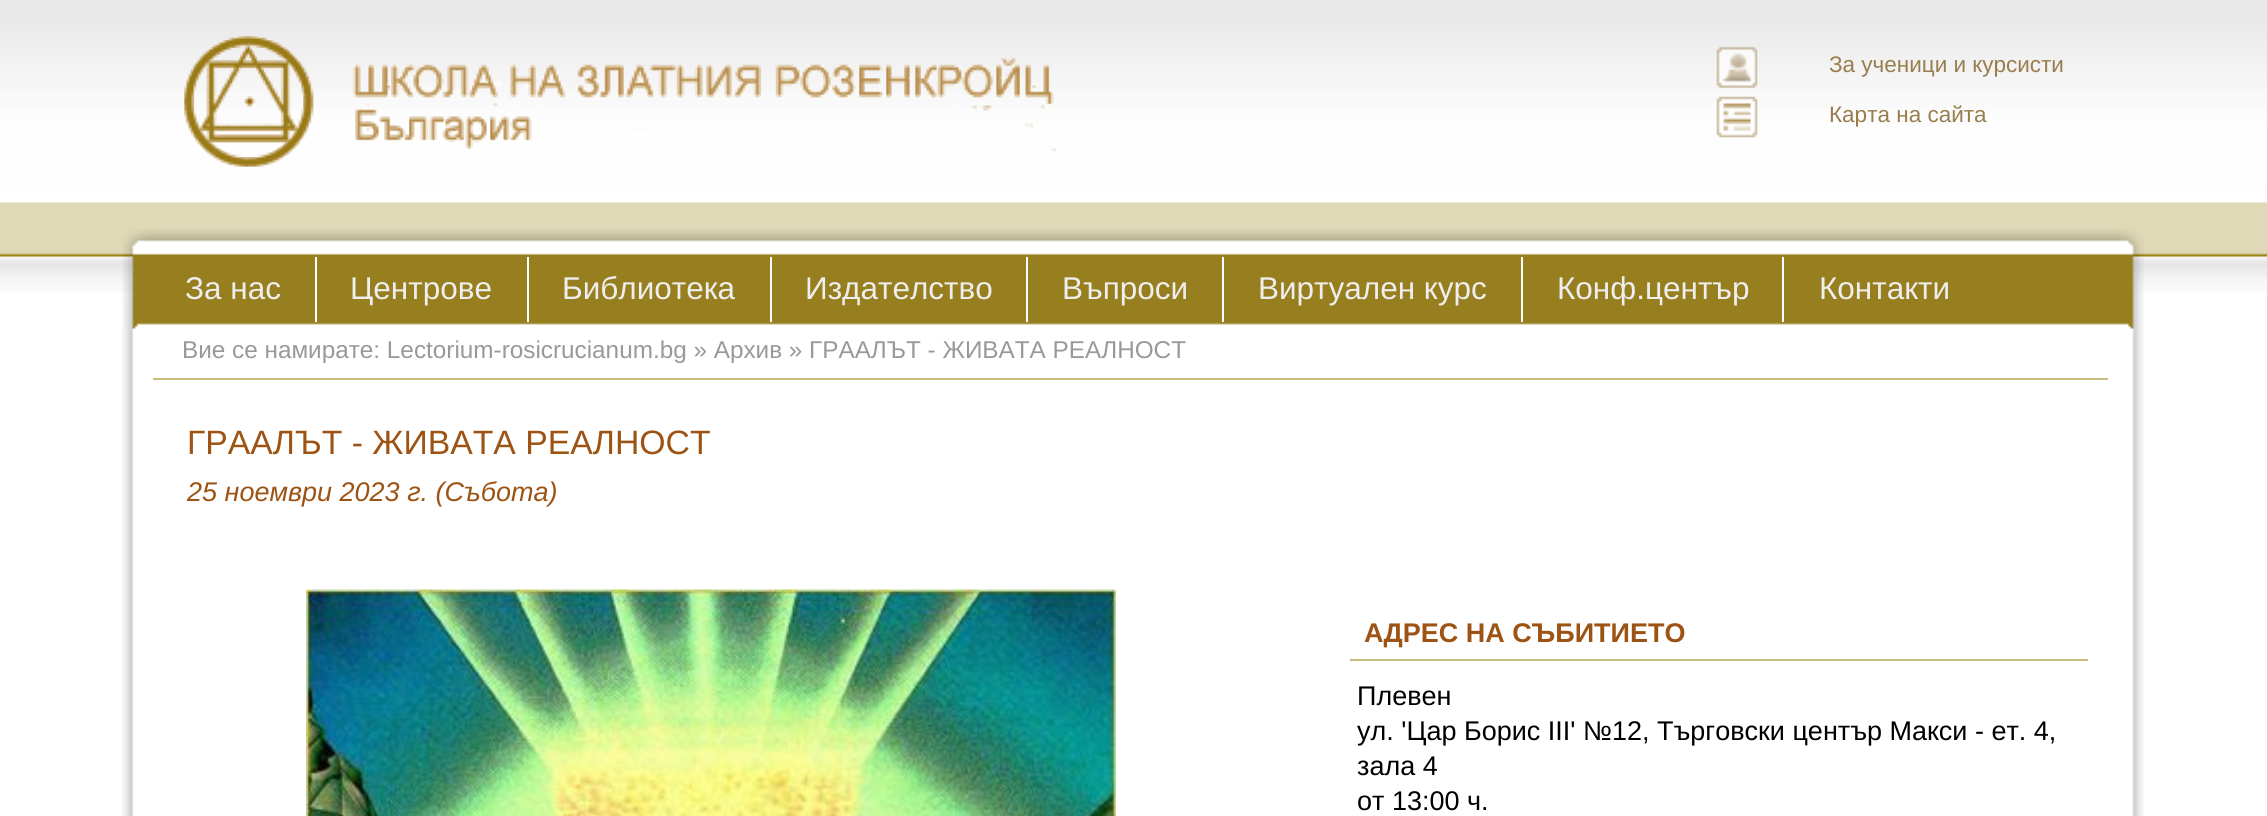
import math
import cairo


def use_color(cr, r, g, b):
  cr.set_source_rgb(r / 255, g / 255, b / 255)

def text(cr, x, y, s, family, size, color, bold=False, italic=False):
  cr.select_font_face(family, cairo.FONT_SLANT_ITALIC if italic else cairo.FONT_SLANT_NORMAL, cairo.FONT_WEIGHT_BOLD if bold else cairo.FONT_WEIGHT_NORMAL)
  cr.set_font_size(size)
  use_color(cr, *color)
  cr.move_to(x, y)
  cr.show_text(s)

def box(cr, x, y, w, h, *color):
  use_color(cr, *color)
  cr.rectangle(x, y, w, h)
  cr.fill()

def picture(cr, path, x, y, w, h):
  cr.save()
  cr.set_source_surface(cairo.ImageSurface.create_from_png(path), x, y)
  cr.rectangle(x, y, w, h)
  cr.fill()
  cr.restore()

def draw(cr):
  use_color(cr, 255, 255, 255)
  cr.paint()
  picture(cr, "img_01.png", 0, 0, 2267, 292)
  picture(cr, "img_02.png", 184, 36, 872, 131)
  picture(cr, "img_03.png", 184, 37, 872, 130)
  picture(cr, "img_04.png", 1716, 47, 42, 41)
  picture(cr, "img_05.png", 1716, 96, 42, 42)
  picture(cr, "img_06.png", 121, 328, 2023, 488)
  picture(cr, "img_07.png", 122, 229, 2022, 100)
  box(cr, 315, 257, 2, 65, 255, 255, 255)
  box(cr, 527, 257, 2, 65, 255, 255, 255)
  box(cr, 770, 257, 2, 65, 255, 255, 255)
  box(cr, 1026, 257, 2, 65, 255, 255, 255)
  box(cr, 1222, 257, 2, 65, 255, 255, 255)
  box(cr, 1521, 257, 2, 65, 255, 255, 255)
  box(cr, 1782, 257, 2, 65, 255, 255, 255)
  box(cr, 153, 378, 1955, 2, 198, 188, 127)
  picture(cr, "img_08.png", 306, 589, 810, 227)
  box(cr, 1350, 659, 738, 2, 198, 188, 127)
  text(cr, 1829, 72, "За ученици и курсисти", "Liberation Sans", 22.5, (153, 125, 76))
  text(cr, 1829, 122, "Карта на сайта", "Liberation Sans", 22.5, (153, 125, 76))
  text(cr, 185, 299, "За нас", "Liberation Sans", 31.5, (238, 238, 238))
  text(cr, 350, 299, "Центрове", "Liberation Sans", 31.5, (238, 238, 238))
  text(cr, 562, 299, "Библиотека", "Liberation Sans", 31.5, (238, 238, 238))
  text(cr, 805, 299, "Издателство", "Liberation Sans", 31.5, (238, 238, 238))
  text(cr, 1062, 299, "Въпроси", "Liberation Sans", 31.5, (238, 238, 238))
  text(cr, 1258, 299, "Виртуален курс", "Liberation Sans", 31.5, (238, 238, 238))
  text(cr, 1557, 299, "Конф.център", "Liberation Sans", 31.5, (238, 238, 238))
  text(cr, 1819, 299, "Контакти", "Liberation Sans", 31.5, (238, 238, 238))
  text(cr, 182, 358, "Вие се намирате: Lectorium-rosicrucianum.bg » Архив » ГРААЛЪТ - ЖИВАТА РЕАЛНОСТ", "Liberation Sans", 24.3, (153, 153, 153))
  text(cr, 187, 454, "ГРААЛЪТ - ЖИВАТА РЕАЛНОСТ", "Liberation Sans", 33.75, (157, 83, 19))
  text(cr, 187, 501, "25 ноември 2023 г. (Събота)", "Liberation Sans", 27, (157, 83, 19), italic=True)
  text(cr, 1364, 642, "АДРЕС НА СЪБИТИЕТО", "Liberation Sans", 27, (157, 83, 19), bold=True)
  text(cr, 1357, 705, "Плевен", "Liberation Sans", 27, (0, 0, 0))
  text(cr, 1357, 740, "ул. 'Цар Борис III' №12, Търговски център Макси - ет. 4,", "Liberation Sans", 27, (0, 0, 0))
  text(cr, 1357, 775, "зала 4", "Liberation Sans", 27, (0, 0, 0))
  text(cr, 1357, 810, "от 13:00 ч.", "Liberation Sans", 27, (0, 0, 0))


surface = cairo.ImageSurface(cairo.FORMAT_RGB24, 2267, 816)
cr = cairo.Context(surface)
options = cairo.FontOptions()
options.set_hint_metrics(cairo.HINT_METRICS_OFF)
options.set_hint_style(cairo.HINT_STYLE_NONE)
cr.set_font_options(options)
cr.set_miter_limit(4)
draw(cr)
surface.write_to_png("out.png")
